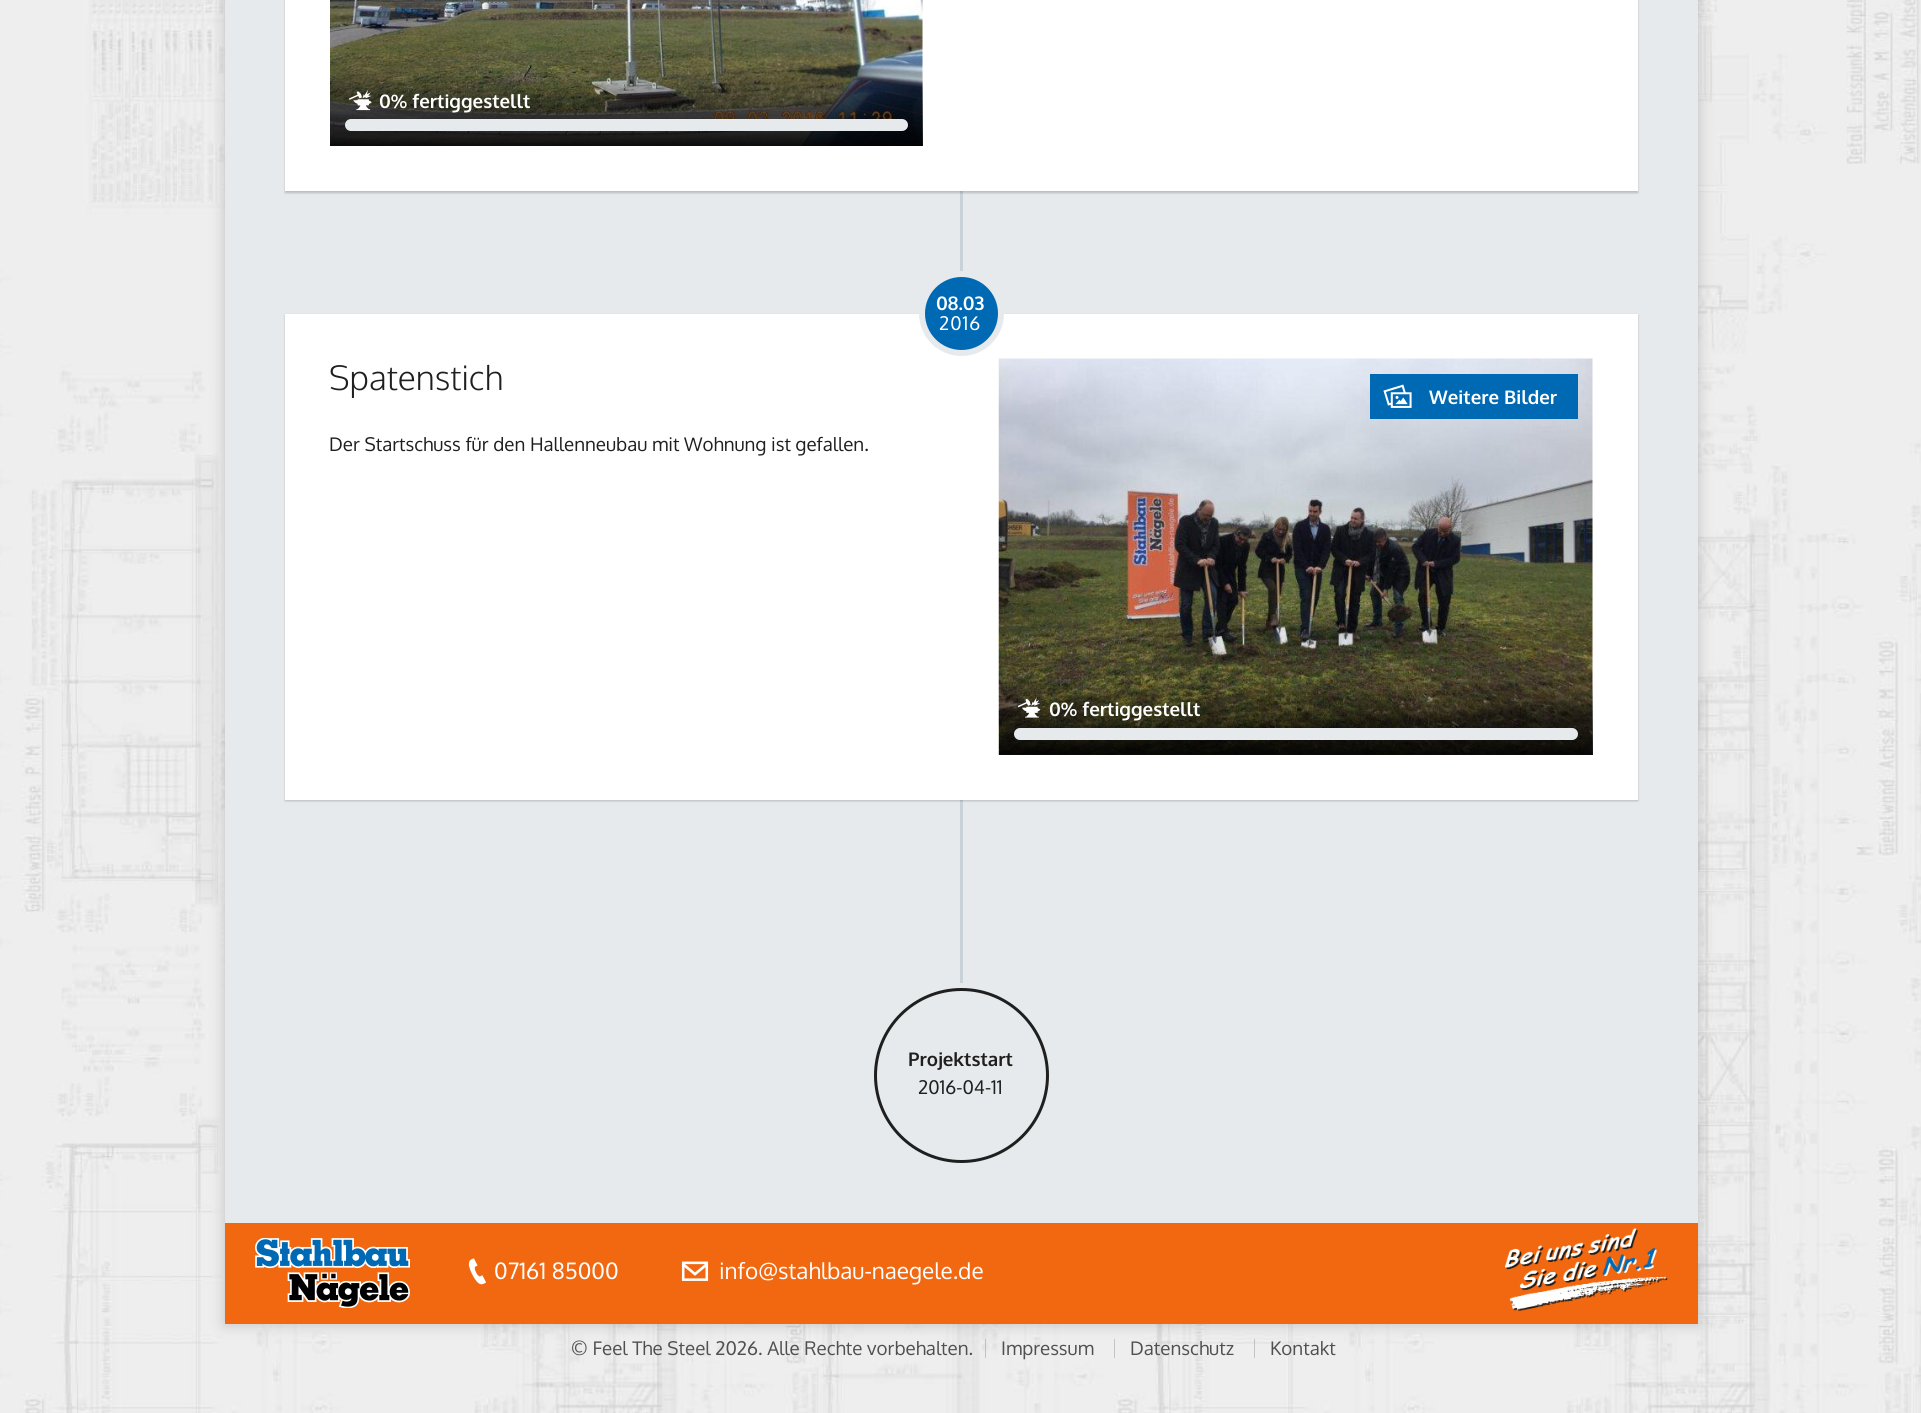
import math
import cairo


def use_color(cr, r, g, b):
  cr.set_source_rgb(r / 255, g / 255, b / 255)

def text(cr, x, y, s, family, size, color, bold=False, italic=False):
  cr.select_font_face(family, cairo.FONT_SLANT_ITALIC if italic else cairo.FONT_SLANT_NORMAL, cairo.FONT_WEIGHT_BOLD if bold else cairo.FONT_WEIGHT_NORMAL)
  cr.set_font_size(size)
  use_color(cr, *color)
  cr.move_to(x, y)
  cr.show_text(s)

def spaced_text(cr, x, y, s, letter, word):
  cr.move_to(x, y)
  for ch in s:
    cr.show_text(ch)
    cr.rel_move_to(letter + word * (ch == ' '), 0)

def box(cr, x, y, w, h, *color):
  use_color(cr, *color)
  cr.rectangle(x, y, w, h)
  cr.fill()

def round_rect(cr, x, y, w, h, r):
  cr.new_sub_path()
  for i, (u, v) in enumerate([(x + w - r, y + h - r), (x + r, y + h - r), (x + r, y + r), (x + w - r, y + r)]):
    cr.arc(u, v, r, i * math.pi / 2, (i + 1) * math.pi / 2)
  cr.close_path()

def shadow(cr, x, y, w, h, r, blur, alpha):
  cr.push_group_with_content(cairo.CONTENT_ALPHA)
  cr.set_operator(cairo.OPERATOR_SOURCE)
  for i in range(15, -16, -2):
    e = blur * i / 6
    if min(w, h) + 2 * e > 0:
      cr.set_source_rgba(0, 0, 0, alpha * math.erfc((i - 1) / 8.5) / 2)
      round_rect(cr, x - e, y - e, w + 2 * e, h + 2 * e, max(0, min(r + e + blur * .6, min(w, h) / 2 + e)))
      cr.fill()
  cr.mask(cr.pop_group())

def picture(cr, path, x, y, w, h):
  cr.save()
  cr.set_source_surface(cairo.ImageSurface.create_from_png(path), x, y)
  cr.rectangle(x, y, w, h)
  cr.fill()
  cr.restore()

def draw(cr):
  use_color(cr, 255, 255, 255)
  cr.paint()
  picture(cr, "img_01.png", 0, 0, 1921, 1413)
  use_color(cr, 0, 0, 0)
  shadow(cr, 225, -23, 1473, 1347, 0, 7.5, 0.2)
  box(cr, 225, 0, 1473, 1223, 230, 234, 236)
  box(cr, 960, 191, 3, 792, 201, 210, 214)
  use_color(cr, 0, 0, 0)
  shadow(cr, 285, -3, 1353, 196, 0, 1, 0.2)
  box(cr, 285, 0, 1353, 191, 255, 255, 255)
  picture(cr, "img_02.png", 330, 0, 593, 146)
  gradient = cairo.LinearGradient(626, 74, 626, 146)
  gradient.add_color_stop_rgba(0, 0, 0, 0, 0)
  gradient.add_color_stop_rgba(1, 0, 0, 0, 0.9)
  cr.set_source(gradient)
  cr.rectangle(330, 76, 593, 70)
  cr.fill()
  picture(cr, "img_03.png", 349, 90, 23, 21)
  use_color(cr, 230, 234, 236)
  round_rect(cr, 345, 119, 563, 12, 6)
  cr.fill()
  use_color(cr, 0, 0, 0)
  shadow(cr, 285, 315, 1353, 486, 0, 1, 0.2)
  box(cr, 285, 314, 1353, 486, 255, 255, 255)
  use_color(cr, 0, 105, 180)
  cr.arc(961.5, 313.5, 39.5, 0, 2 * math.pi)
  cr.fill_preserve()
  use_color(cr, 230, 234, 236)
  cr.set_line_width(6)
  cr.stroke()
  picture(cr, "img_04.png", 998, 358, 595, 397)
  box(cr, 1370, 374, 208, 45, 0, 105, 180)
  picture(cr, "img_05.png", 1383, 384, 29, 24)
  gradient = cairo.LinearGradient(1296, 681, 1296, 755)
  gradient.add_color_stop_rgba(0, 0, 0, 0, 0)
  gradient.add_color_stop_rgba(1, 0, 0, 0, 0.9)
  cr.set_source(gradient)
  cr.rectangle(999, 683, 594, 72)
  cr.fill()
  picture(cr, "img_06.png", 1017, 697, 24, 21)
  use_color(cr, 230, 234, 236)
  round_rect(cr, 1014, 728, 564, 12, 6)
  cr.fill()
  cr.arc(961.5, 1075.5, 86, 0, 2 * math.pi)
  use_color(cr, 31, 31, 31)
  cr.set_line_width(3)
  cr.stroke()
  box(cr, 225, 1223, 1473, 101, 242, 104, 16)
  picture(cr, "img_07.png", 255, 1238, 155, 70)
  picture(cr, "img_08.png", 468, 1258, 18, 27)
  picture(cr, "img_09.png", 681, 1261, 28, 20)
  picture(cr, "img_10.png", 1505, 1228, 163, 83)
  cr.set_source_rgba(0.122, 0.122, 0.122, 0.2)
  cr.rectangle(985, 1339, 1, 19)
  cr.fill()
  box(cr, 1114, 1339, 1, 19, 196, 196, 196)
  cr.set_source_rgba(0.122, 0.122, 0.122, 0.2)
  cr.rectangle(1254, 1339, 1, 19)
  cr.fill()
  text(cr, 379, 108, "0% fertiggestellt", "Oxygen", 18.75, (255, 255, 255), bold=True)
  text(cr, 936, 310, "08.03", "Oxygen", 18.75, (255, 255, 255), bold=True)
  cr.select_font_face("Oxygen")
  spaced_text(cr, 939, 330, "2016", 1, 0)
  text(cr, 329, 390, "Spatenstich", "Oxygen Light", 33.75, (31, 31, 31))
  text(cr, 329, 451, "Der Startschuss für den Hallenneubau mit Wohnung ist gefallen.", "Oxygen", 18.75, (31, 31, 31))
  text(cr, 1429, 404, "Weitere Bilder", "Oxygen", 18.75, (255, 255, 255), bold=True)
  text(cr, 1049, 716, "0% fertiggestellt", "Oxygen", 18.75, (255, 255, 255), bold=True)
  text(cr, 908, 1066, "Projektstart", "Oxygen", 18.75, (31, 31, 31), bold=True)
  text(cr, 918, 1094, "2016-04-11", "Oxygen", 18.75, (31, 31, 31))
  text(cr, 494, 1279, "07161 85000", "Oxygen", 22.5, (255, 255, 255))
  text(cr, 719, 1279, "info@stahlbau-naegele.de", "Oxygen", 22.5, (255, 255, 255))
  text(cr, 571, 1355, "© Feel The Steel 2026. Alle Rechte vorbehalten.", "Oxygen", 18.75, (80, 80, 80))
  text(cr, 1001, 1355, "Impressum", "Oxygen", 18.75, (80, 80, 80))
  text(cr, 1130, 1355, "Datenschutz", "Oxygen", 18.75, (80, 80, 80))
  text(cr, 1270, 1355, "Kontakt", "Oxygen", 18.75, (80, 80, 80))


surface = cairo.ImageSurface(cairo.FORMAT_RGB24, 1921, 1413)
cr = cairo.Context(surface)
options = cairo.FontOptions()
options.set_hint_metrics(cairo.HINT_METRICS_OFF)
options.set_hint_style(cairo.HINT_STYLE_NONE)
cr.set_font_options(options)
cr.set_miter_limit(4)
draw(cr)
surface.write_to_png("out.png")
